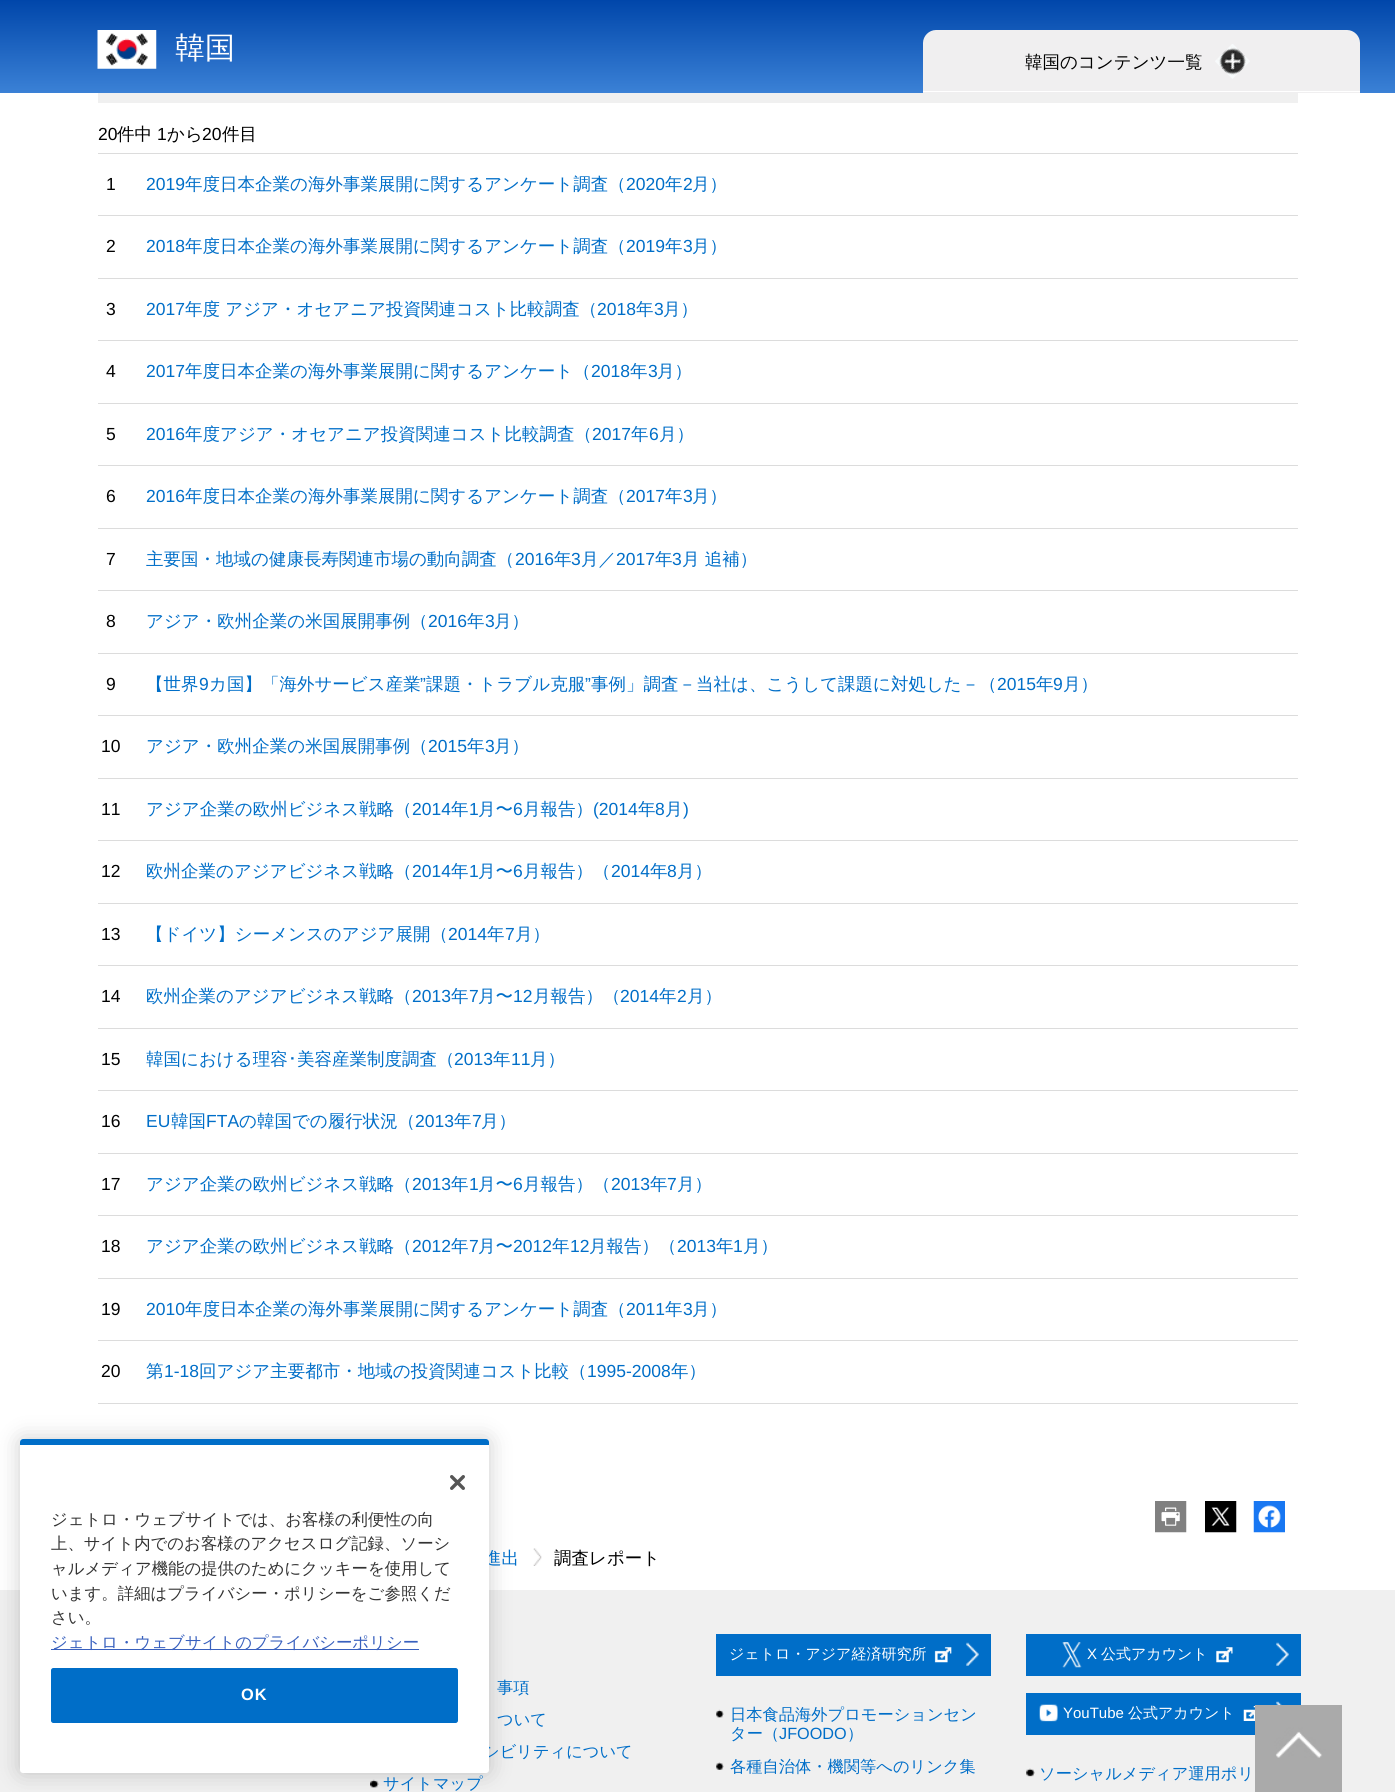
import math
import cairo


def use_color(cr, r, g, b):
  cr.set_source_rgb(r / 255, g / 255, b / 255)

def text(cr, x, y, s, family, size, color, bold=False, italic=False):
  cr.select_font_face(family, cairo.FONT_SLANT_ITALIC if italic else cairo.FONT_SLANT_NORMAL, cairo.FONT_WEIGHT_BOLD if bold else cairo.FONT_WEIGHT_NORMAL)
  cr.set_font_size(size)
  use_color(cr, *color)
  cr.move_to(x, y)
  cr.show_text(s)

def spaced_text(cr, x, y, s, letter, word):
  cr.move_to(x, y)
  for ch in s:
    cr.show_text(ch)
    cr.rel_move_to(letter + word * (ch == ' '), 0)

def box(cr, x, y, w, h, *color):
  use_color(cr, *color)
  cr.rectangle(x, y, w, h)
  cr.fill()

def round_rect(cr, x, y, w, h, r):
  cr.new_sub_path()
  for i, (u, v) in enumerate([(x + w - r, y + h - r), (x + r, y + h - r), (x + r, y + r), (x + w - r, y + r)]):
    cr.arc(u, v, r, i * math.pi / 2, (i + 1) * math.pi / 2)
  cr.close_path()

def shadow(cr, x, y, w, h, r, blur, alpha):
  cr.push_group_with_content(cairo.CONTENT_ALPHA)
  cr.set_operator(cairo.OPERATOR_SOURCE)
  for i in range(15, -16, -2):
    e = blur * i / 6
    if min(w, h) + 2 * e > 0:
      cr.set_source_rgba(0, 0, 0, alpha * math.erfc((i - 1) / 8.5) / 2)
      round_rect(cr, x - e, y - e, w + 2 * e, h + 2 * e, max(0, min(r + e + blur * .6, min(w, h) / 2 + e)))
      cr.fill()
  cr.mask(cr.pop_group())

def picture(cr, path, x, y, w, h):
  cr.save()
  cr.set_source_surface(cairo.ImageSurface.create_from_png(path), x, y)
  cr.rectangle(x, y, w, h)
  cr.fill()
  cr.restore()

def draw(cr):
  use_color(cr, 255, 255, 255)
  cr.paint()
  gradient = cairo.LinearGradient(698, 0, 698, 93)
  gradient.add_color_stop_rgba(0, 0, 0.275, 0.667, 1)
  gradient.add_color_stop_rgba(1, 0.231, 0.506, 0.839, 1)
  cr.set_source(gradient)
  cr.rectangle(0, 0, 1395, 93)
  cr.fill()
  picture(cr, "img_01.png", 97, 30, 60, 39)
  use_color(cr, 240, 239, 240)
  cr.new_path()
  cr.move_to(936, 30)
  cr.line_to(1347, 30)
  cr.curve_to(1354, 30, 1360, 36, 1360, 43)
  cr.line_to(1360, 93)
  cr.line_to(923, 93)
  cr.line_to(923, 43)
  cr.curve_to(923, 36, 929, 30, 936, 30)
  cr.close_path()
  cr.fill()
  box(cr, 923, 91, 437, 1, 255, 255, 255)
  picture(cr, "img_02.png", 1215, 44, 35, 35)
  box(cr, 98, 93, 1200, 10, 240, 240, 240)
  box(cr, 98, 153, 1200, 1, 220, 220, 220)
  box(cr, 98, 215, 1200, 1, 220, 220, 220)
  box(cr, 98, 278, 1200, 1, 220, 220, 220)
  box(cr, 98, 340, 1200, 1, 220, 220, 220)
  box(cr, 98, 403, 1200, 1, 220, 220, 220)
  box(cr, 98, 465, 1200, 1, 220, 220, 220)
  box(cr, 98, 528, 1200, 1, 220, 220, 220)
  box(cr, 98, 590, 1200, 1, 220, 220, 220)
  box(cr, 98, 653, 1200, 1, 220, 220, 220)
  box(cr, 98, 715, 1200, 1, 220, 220, 220)
  box(cr, 98, 778, 1200, 1, 220, 220, 220)
  box(cr, 98, 840, 1200, 1, 220, 220, 220)
  box(cr, 98, 903, 1200, 1, 220, 220, 220)
  box(cr, 98, 965, 1200, 1, 220, 220, 220)
  box(cr, 98, 1028, 1200, 1, 220, 220, 220)
  box(cr, 98, 1090, 1200, 1, 220, 220, 220)
  box(cr, 98, 1153, 1200, 1, 220, 220, 220)
  box(cr, 98, 1215, 1200, 1, 220, 220, 220)
  box(cr, 98, 1278, 1200, 1, 220, 220, 220)
  box(cr, 98, 1340, 1200, 1, 220, 220, 220)
  box(cr, 98, 1403, 1200, 1, 220, 220, 220)
  picture(cr, "img_03.png", 1155, 1501, 32, 32)
  picture(cr, "img_04.png", 1205, 1501, 32, 32)
  picture(cr, "img_05.png", 1253, 1501, 32, 32)
  picture(cr, "img_06.png", 533, 1548, 9, 18)
  box(cr, 0, 1590, 1395, 202, 240, 240, 240)
  picture(cr, "img_07.png", 370, 1779, 9, 9)
  box(cr, 716, 1634, 275, 42, 0, 110, 200)
  picture(cr, "img_08.png", 966, 1642, 13, 24)
  picture(cr, "img_09.png", 934, 1647, 18, 16)
  picture(cr, "img_10.png", 716, 1709, 8, 9)
  picture(cr, "img_11.png", 716, 1762, 8, 8)
  box(cr, 1026, 1634, 275, 42, 0, 110, 200)
  picture(cr, "img_08.png", 1276, 1642, 13, 24)
  picture(cr, "img_12.png", 1062, 1642, 20, 26)
  picture(cr, "img_13.png", 1216, 1647, 17, 16)
  box(cr, 1026, 1693, 275, 42, 0, 110, 200)
  picture(cr, "img_14.png", 1276, 1701, 6, 4)
  picture(cr, "img_15.png", 1039, 1704, 19, 18)
  picture(cr, "img_16.png", 1243, 1706, 12, 15)
  picture(cr, "img_17.png", 1026, 1768, 9, 9)
  picture(cr, "img_18.png", 1255, 1705, 87, 87)
  use_color(cr, 0, 0, 0)
  shadow(cr, 20, 1439, 469, 334, 3, 11, 0.2)
  text(cr, 175, 58, "韓国", "WenQuanYi Zen Hei Medium", 30, (255, 255, 255))
  text(cr, 1025, 68, "韓国のコンテンツ一覧", "WenQuanYi Zen Hei Medium", 17.5, (0, 0, 0))
  text(cr, 98, 140, "20", "Liberation Sans", 17.5, (0, 0, 0))
  text(cr, 117, 140, "件中", "WenQuanYi Zen Hei Medium", 17.5, (0, 0, 0))
  text(cr, 157, 140, "1", "Liberation Sans", 17.5, (0, 0, 0))
  text(cr, 167, 140, "から", "WenQuanYi Zen Hei Medium", 17.5, (0, 0, 0))
  text(cr, 202, 140, "20", "Liberation Sans", 17.5, (0, 0, 0))
  text(cr, 222, 140, "件目", "WenQuanYi Zen Hei Medium", 17.5, (0, 0, 0))
  text(cr, 106, 190, "1", "Liberation Sans", 17.5, (0, 0, 0))
  text(cr, 146, 190, "2019", "Liberation Sans", 17.5, (0, 110, 200))
  text(cr, 185, 190, "年度日本企業の海外事業展開に関するアンケート調査（", "WenQuanYi Zen Hei Medium", 17.5, (0, 110, 200))
  text(cr, 626, 190, "2020", "Liberation Sans", 17.5, (0, 110, 200))
  text(cr, 665, 190, "年", "WenQuanYi Zen Hei Medium", 17.5, (0, 110, 200))
  text(cr, 683, 190, "2", "Liberation Sans", 17.5, (0, 110, 200))
  text(cr, 692, 190, "月）", "WenQuanYi Zen Hei Medium", 17.5, (0, 110, 200))
  text(cr, 106, 252, "2", "Liberation Sans", 17.5, (0, 0, 0))
  text(cr, 146, 252, "2018", "Liberation Sans", 17.5, (0, 110, 200))
  text(cr, 185, 252, "年度日本企業の海外事業展開に関するアンケート調査（", "WenQuanYi Zen Hei Medium", 17.5, (0, 110, 200))
  text(cr, 626, 252, "2019", "Liberation Sans", 17.5, (0, 110, 200))
  text(cr, 665, 252, "年", "WenQuanYi Zen Hei Medium", 17.5, (0, 110, 200))
  text(cr, 683, 252, "3", "Liberation Sans", 17.5, (0, 110, 200))
  text(cr, 692, 252, "月）", "WenQuanYi Zen Hei Medium", 17.5, (0, 110, 200))
  text(cr, 106, 315, "3", "Liberation Sans", 17.5, (0, 0, 0))
  text(cr, 146, 315, "2017", "Liberation Sans", 17.5, (0, 110, 200))
  text(cr, 185, 315, "年度 アジア・オセアニア投資関連コスト比較調査（", "WenQuanYi Zen Hei Medium", 17.5, (0, 110, 200))
  text(cr, 597, 315, "2018", "Liberation Sans", 17.5, (0, 110, 200))
  text(cr, 636, 315, "年", "WenQuanYi Zen Hei Medium", 17.5, (0, 110, 200))
  text(cr, 654, 315, "3", "Liberation Sans", 17.5, (0, 110, 200))
  text(cr, 663, 315, "月）", "WenQuanYi Zen Hei Medium", 17.5, (0, 110, 200))
  text(cr, 106, 377, "4", "Liberation Sans", 17.5, (0, 0, 0))
  text(cr, 146, 377, "2017", "Liberation Sans", 17.5, (0, 110, 200))
  text(cr, 185, 377, "年度日本企業の海外事業展開に関するアンケート（", "WenQuanYi Zen Hei Medium", 17.5, (0, 110, 200))
  text(cr, 591, 377, "2018", "Liberation Sans", 17.5, (0, 110, 200))
  text(cr, 630, 377, "年", "WenQuanYi Zen Hei Medium", 17.5, (0, 110, 200))
  text(cr, 648, 377, "3", "Liberation Sans", 17.5, (0, 110, 200))
  text(cr, 657, 377, "月）", "WenQuanYi Zen Hei Medium", 17.5, (0, 110, 200))
  text(cr, 106, 440, "5", "Liberation Sans", 17.5, (0, 0, 0))
  text(cr, 146, 440, "2016", "Liberation Sans", 17.5, (0, 110, 200))
  text(cr, 185, 440, "年度アジア・オセアニア投資関連コスト比較調査（", "WenQuanYi Zen Hei Medium", 17.5, (0, 110, 200))
  text(cr, 592, 440, "2017", "Liberation Sans", 17.5, (0, 110, 200))
  text(cr, 631, 440, "年", "WenQuanYi Zen Hei Medium", 17.5, (0, 110, 200))
  text(cr, 649, 440, "6", "Liberation Sans", 17.5, (0, 110, 200))
  text(cr, 659, 440, "月）", "WenQuanYi Zen Hei Medium", 17.5, (0, 110, 200))
  text(cr, 106, 502, "6", "Liberation Sans", 17.5, (0, 0, 0))
  text(cr, 146, 502, "2016", "Liberation Sans", 17.5, (0, 110, 200))
  text(cr, 185, 502, "年度日本企業の海外事業展開に関するアンケート調査（", "WenQuanYi Zen Hei Medium", 17.5, (0, 110, 200))
  text(cr, 626, 502, "2017", "Liberation Sans", 17.5, (0, 110, 200))
  text(cr, 665, 502, "年", "WenQuanYi Zen Hei Medium", 17.5, (0, 110, 200))
  text(cr, 683, 502, "3", "Liberation Sans", 17.5, (0, 110, 200))
  text(cr, 692, 502, "月）", "WenQuanYi Zen Hei Medium", 17.5, (0, 110, 200))
  text(cr, 106, 565, "7", "Liberation Sans", 17.5, (0, 0, 0))
  text(cr, 146, 565, "主要国・地域の健康長寿関連市場の動向調査（", "WenQuanYi Zen Hei Medium", 17.5, (0, 110, 200))
  text(cr, 515, 565, "2016", "Liberation Sans", 17.5, (0, 110, 200))
  text(cr, 554, 565, "年", "WenQuanYi Zen Hei Medium", 17.5, (0, 110, 200))
  text(cr, 571, 565, "3", "Liberation Sans", 17.5, (0, 110, 200))
  text(cr, 581, 565, "月／", "WenQuanYi Zen Hei Medium", 17.5, (0, 110, 200))
  text(cr, 616, 565, "2017", "Liberation Sans", 17.5, (0, 110, 200))
  text(cr, 655, 565, "年", "WenQuanYi Zen Hei Medium", 17.5, (0, 110, 200))
  text(cr, 672, 565, "3", "Liberation Sans", 17.5, (0, 110, 200))
  text(cr, 682, 565, "月 追補）", "WenQuanYi Zen Hei Medium", 17.5, (0, 110, 200))
  text(cr, 106, 627, "8", "Liberation Sans", 17.5, (0, 0, 0))
  text(cr, 146, 627, "アジア・欧州企業の米国展開事例（", "WenQuanYi Zen Hei Medium", 17.5, (0, 110, 200))
  text(cr, 428, 627, "2016", "Liberation Sans", 17.5, (0, 110, 200))
  text(cr, 467, 627, "年", "WenQuanYi Zen Hei Medium", 17.5, (0, 110, 200))
  text(cr, 485, 627, "3", "Liberation Sans", 17.5, (0, 110, 200))
  text(cr, 494, 627, "月）", "WenQuanYi Zen Hei Medium", 17.5, (0, 110, 200))
  text(cr, 106, 690, "9", "Liberation Sans", 17.5, (0, 0, 0))
  text(cr, 146, 690, "【世界", "WenQuanYi Zen Hei Medium", 17.5, (0, 110, 200))
  text(cr, 199, 690, "9", "Liberation Sans", 17.5, (0, 110, 200))
  text(cr, 209, 690, "カ国】「海外サービス産業", "WenQuanYi Zen Hei Medium", 17.5, (0, 110, 200))
  text(cr, 420, 690, "”", "Liberation Sans", 17.5, (0, 110, 200))
  text(cr, 426, 690, "課題・トラブル克服", "WenQuanYi Zen Hei Medium", 17.5, (0, 110, 200))
  text(cr, 585, 690, "”", "Liberation Sans", 17.5, (0, 110, 200))
  text(cr, 591, 690, "事例」調査－当社は、こうして課題に対処した－（", "WenQuanYi Zen Hei Medium", 17.5, (0, 110, 200))
  text(cr, 997, 690, "2015", "Liberation Sans", 17.5, (0, 110, 200))
  text(cr, 1036, 690, "年", "WenQuanYi Zen Hei Medium", 17.5, (0, 110, 200))
  text(cr, 1053, 690, "9", "Liberation Sans", 17.5, (0, 110, 200))
  text(cr, 1063, 690, "月）", "WenQuanYi Zen Hei Medium", 17.5, (0, 110, 200))
  text(cr, 101, 752, "10", "Liberation Sans", 17.5, (0, 0, 0))
  text(cr, 146, 752, "アジア・欧州企業の米国展開事例（", "WenQuanYi Zen Hei Medium", 17.5, (0, 110, 200))
  text(cr, 428, 752, "2015", "Liberation Sans", 17.5, (0, 110, 200))
  text(cr, 467, 752, "年", "WenQuanYi Zen Hei Medium", 17.5, (0, 110, 200))
  text(cr, 485, 752, "3", "Liberation Sans", 17.5, (0, 110, 200))
  text(cr, 494, 752, "月）", "WenQuanYi Zen Hei Medium", 17.5, (0, 110, 200))
  text(cr, 101, 815, "11", "Liberation Sans", 17.5, (0, 0, 0))
  text(cr, 146, 815, "アジア企業の欧州ビジネス戦略（", "WenQuanYi Zen Hei Medium", 17.5, (0, 110, 200))
  text(cr, 412, 815, "2014", "Liberation Sans", 17.5, (0, 110, 200))
  text(cr, 451, 815, "年", "WenQuanYi Zen Hei Medium", 17.5, (0, 110, 200))
  text(cr, 469, 815, "1", "Liberation Sans", 17.5, (0, 110, 200))
  text(cr, 478, 815, "月〜", "WenQuanYi Zen Hei Medium", 17.5, (0, 110, 200))
  text(cr, 513, 815, "6", "Liberation Sans", 17.5, (0, 110, 200))
  text(cr, 523, 815, "月報告）", "WenQuanYi Zen Hei Medium", 17.5, (0, 110, 200))
  text(cr, 593, 815, "(2014", "Liberation Sans", 17.5, (0, 110, 200))
  text(cr, 638, 815, "年", "WenQuanYi Zen Hei Medium", 17.5, (0, 110, 200))
  text(cr, 655, 815, "8", "Liberation Sans", 17.5, (0, 110, 200))
  text(cr, 665, 815, "月", "WenQuanYi Zen Hei Medium", 17.5, (0, 110, 200))
  text(cr, 683, 815, ")", "Liberation Sans", 17.5, (0, 110, 200))
  text(cr, 101, 877, "12", "Liberation Sans", 17.5, (0, 0, 0))
  text(cr, 146, 877, "欧州企業のアジアビジネス戦略（", "WenQuanYi Zen Hei Medium", 17.5, (0, 110, 200))
  text(cr, 412, 877, "2014", "Liberation Sans", 17.5, (0, 110, 200))
  text(cr, 451, 877, "年", "WenQuanYi Zen Hei Medium", 17.5, (0, 110, 200))
  text(cr, 469, 877, "1", "Liberation Sans", 17.5, (0, 110, 200))
  text(cr, 478, 877, "月〜", "WenQuanYi Zen Hei Medium", 17.5, (0, 110, 200))
  text(cr, 513, 877, "6", "Liberation Sans", 17.5, (0, 110, 200))
  text(cr, 523, 877, "月報告）（", "WenQuanYi Zen Hei Medium", 17.5, (0, 110, 200))
  text(cr, 611, 877, "2014", "Liberation Sans", 17.5, (0, 110, 200))
  text(cr, 650, 877, "年", "WenQuanYi Zen Hei Medium", 17.5, (0, 110, 200))
  text(cr, 667, 877, "8", "Liberation Sans", 17.5, (0, 110, 200))
  text(cr, 677, 877, "月）", "WenQuanYi Zen Hei Medium", 17.5, (0, 110, 200))
  text(cr, 101, 940, "13", "Liberation Sans", 17.5, (0, 0, 0))
  text(cr, 146, 940, "【ドイツ】シーメンスのアジア展開（", "WenQuanYi Zen Hei Medium", 17.5, (0, 110, 200))
  text(cr, 448, 940, "2014", "Liberation Sans", 17.5, (0, 110, 200))
  text(cr, 487, 940, "年", "WenQuanYi Zen Hei Medium", 17.5, (0, 110, 200))
  text(cr, 505, 940, "7", "Liberation Sans", 17.5, (0, 110, 200))
  text(cr, 515, 940, "月）", "WenQuanYi Zen Hei Medium", 17.5, (0, 110, 200))
  text(cr, 101, 1002, "14", "Liberation Sans", 17.5, (0, 0, 0))
  text(cr, 146, 1002, "欧州企業のアジアビジネス戦略（", "WenQuanYi Zen Hei Medium", 17.5, (0, 110, 200))
  text(cr, 412, 1002, "2013", "Liberation Sans", 17.5, (0, 110, 200))
  text(cr, 451, 1002, "年", "WenQuanYi Zen Hei Medium", 17.5, (0, 110, 200))
  text(cr, 469, 1002, "7", "Liberation Sans", 17.5, (0, 110, 200))
  text(cr, 478, 1002, "月〜", "WenQuanYi Zen Hei Medium", 17.5, (0, 110, 200))
  text(cr, 513, 1002, "12", "Liberation Sans", 17.5, (0, 110, 200))
  text(cr, 533, 1002, "月報告）（", "WenQuanYi Zen Hei Medium", 17.5, (0, 110, 200))
  text(cr, 620, 1002, "2014", "Liberation Sans", 17.5, (0, 110, 200))
  text(cr, 659, 1002, "年", "WenQuanYi Zen Hei Medium", 17.5, (0, 110, 200))
  text(cr, 677, 1002, "2", "Liberation Sans", 17.5, (0, 110, 200))
  text(cr, 687, 1002, "月）", "WenQuanYi Zen Hei Medium", 17.5, (0, 110, 200))
  text(cr, 101, 1065, "15", "Liberation Sans", 17.5, (0, 0, 0))
  text(cr, 146, 1065, "韓国における理容", "WenQuanYi Zen Hei Medium", 17.5, (0, 110, 200))
  text(cr, 288, 1065, "･", "IPAPGothic", 17.5, (0, 110, 200))
  text(cr, 297, 1065, "美容産業制度調査（", "WenQuanYi Zen Hei Medium", 17.5, (0, 110, 200))
  text(cr, 454, 1065, "2013", "Liberation Sans", 17.5, (0, 110, 200))
  text(cr, 493, 1065, "年", "WenQuanYi Zen Hei Medium", 17.5, (0, 110, 200))
  text(cr, 511, 1065, "11", "Liberation Sans", 17.5, (0, 110, 200))
  text(cr, 530, 1065, "月）", "WenQuanYi Zen Hei Medium", 17.5, (0, 110, 200))
  text(cr, 101, 1127, "16", "Liberation Sans", 17.5, (0, 0, 0))
  text(cr, 146, 1127, "EU", "Liberation Sans", 17.5, (0, 110, 200))
  text(cr, 171, 1127, "韓国", "WenQuanYi Zen Hei Medium", 17.5, (0, 110, 200))
  text(cr, 206, 1127, "FTA", "Liberation Sans", 17.5, (0, 110, 200))
  text(cr, 239, 1127, "の韓国での履行状況（", "WenQuanYi Zen Hei Medium", 17.5, (0, 110, 200))
  text(cr, 415, 1127, "2013", "Liberation Sans", 17.5, (0, 110, 200))
  text(cr, 454, 1127, "年", "WenQuanYi Zen Hei Medium", 17.5, (0, 110, 200))
  text(cr, 472, 1127, "7", "Liberation Sans", 17.5, (0, 110, 200))
  text(cr, 481, 1127, "月）", "WenQuanYi Zen Hei Medium", 17.5, (0, 110, 200))
  text(cr, 101, 1190, "17", "Liberation Sans", 17.5, (0, 0, 0))
  text(cr, 146, 1190, "アジア企業の欧州ビジネス戦略（", "WenQuanYi Zen Hei Medium", 17.5, (0, 110, 200))
  text(cr, 412, 1190, "2013", "Liberation Sans", 17.5, (0, 110, 200))
  text(cr, 451, 1190, "年", "WenQuanYi Zen Hei Medium", 17.5, (0, 110, 200))
  text(cr, 469, 1190, "1", "Liberation Sans", 17.5, (0, 110, 200))
  text(cr, 478, 1190, "月〜", "WenQuanYi Zen Hei Medium", 17.5, (0, 110, 200))
  text(cr, 513, 1190, "6", "Liberation Sans", 17.5, (0, 110, 200))
  text(cr, 523, 1190, "月報告）（", "WenQuanYi Zen Hei Medium", 17.5, (0, 110, 200))
  text(cr, 611, 1190, "2013", "Liberation Sans", 17.5, (0, 110, 200))
  text(cr, 650, 1190, "年", "WenQuanYi Zen Hei Medium", 17.5, (0, 110, 200))
  text(cr, 667, 1190, "7", "Liberation Sans", 17.5, (0, 110, 200))
  text(cr, 677, 1190, "月）", "WenQuanYi Zen Hei Medium", 17.5, (0, 110, 200))
  text(cr, 101, 1252, "18", "Liberation Sans", 17.5, (0, 0, 0))
  text(cr, 146, 1252, "アジア企業の欧州ビジネス戦略（", "WenQuanYi Zen Hei Medium", 17.5, (0, 110, 200))
  text(cr, 412, 1252, "2012", "Liberation Sans", 17.5, (0, 110, 200))
  text(cr, 451, 1252, "年", "WenQuanYi Zen Hei Medium", 17.5, (0, 110, 200))
  text(cr, 469, 1252, "7", "Liberation Sans", 17.5, (0, 110, 200))
  text(cr, 478, 1252, "月〜", "WenQuanYi Zen Hei Medium", 17.5, (0, 110, 200))
  text(cr, 513, 1252, "2012", "Liberation Sans", 17.5, (0, 110, 200))
  text(cr, 552, 1252, "年", "WenQuanYi Zen Hei Medium", 17.5, (0, 110, 200))
  text(cr, 570, 1252, "12", "Liberation Sans", 17.5, (0, 110, 200))
  text(cr, 589, 1252, "月報告）（", "WenQuanYi Zen Hei Medium", 17.5, (0, 110, 200))
  text(cr, 677, 1252, "2013", "Liberation Sans", 17.5, (0, 110, 200))
  text(cr, 716, 1252, "年", "WenQuanYi Zen Hei Medium", 17.5, (0, 110, 200))
  text(cr, 733, 1252, "1", "Liberation Sans", 17.5, (0, 110, 200))
  text(cr, 743, 1252, "月）", "WenQuanYi Zen Hei Medium", 17.5, (0, 110, 200))
  text(cr, 101, 1315, "19", "Liberation Sans", 17.5, (0, 0, 0))
  text(cr, 146, 1315, "2010", "Liberation Sans", 17.5, (0, 110, 200))
  text(cr, 185, 1315, "年度日本企業の海外事業展開に関するアンケート調査（", "WenQuanYi Zen Hei Medium", 17.5, (0, 110, 200))
  text(cr, 626, 1315, "2011", "Liberation Sans", 17.5, (0, 110, 200))
  text(cr, 665, 1315, "年", "WenQuanYi Zen Hei Medium", 17.5, (0, 110, 200))
  text(cr, 683, 1315, "3", "Liberation Sans", 17.5, (0, 110, 200))
  text(cr, 692, 1315, "月）", "WenQuanYi Zen Hei Medium", 17.5, (0, 110, 200))
  text(cr, 101, 1377, "20", "Liberation Sans", 17.5, (0, 0, 0))
  text(cr, 146, 1377, "第", "WenQuanYi Zen Hei Medium", 17.5, (0, 110, 200))
  text(cr, 164, 1377, "1-18", "Liberation Sans", 17.5, (0, 110, 200))
  text(cr, 199, 1377, "回アジア主要都市・地域の投資関連コスト比較（", "WenQuanYi Zen Hei Medium", 17.5, (0, 110, 200))
  text(cr, 587, 1377, "1995-2008", "Liberation Sans", 17.5, (0, 110, 200))
  text(cr, 671, 1377, "年）", "WenQuanYi Zen Hei Medium", 17.5, (0, 110, 200))
  text(cr, 484, 1564, "進出", "WenQuanYi Zen Hei Medium", 17.5, (0, 110, 200))
  text(cr, 554, 1564, "調査レポート", "WenQuanYi Zen Hei Medium", 17.5, (0, 0, 0))
  text(cr, 497, 1693, "事項", "WenQuanYi Zen Hei Medium", 16.25, (0, 110, 200))
  text(cr, 497, 1725, "ついて", "WenQuanYi Zen Hei Medium", 16.25, (0, 110, 200))
  text(cr, 483, 1757, "シビリティについて", "WenQuanYi Zen Hei Medium", 16.25, (0, 110, 200))
  text(cr, 383, 1789, "サイトマップ", "WenQuanYi Zen Hei Medium", 16.25, (0, 110, 200))
  text(cr, 729, 1659, "ジェトロ・アジア経済研究所", "WenQuanYi Zen Hei Medium", 15, (255, 255, 255))
  text(cr, 730, 1720, "日本食品海外プロモーションセン", "WenQuanYi Zen Hei Medium", 16.25, (0, 110, 200))
  text(cr, 730, 1739, "ター（", "WenQuanYi Zen Hei Medium", 16.25, (0, 110, 200))
  text(cr, 779, 1739, "JFOODO", "Liberation Sans", 16.25, (0, 110, 200))
  text(cr, 847, 1739, "）", "WenQuanYi Zen Hei Medium", 16.25, (0, 110, 200))
  text(cr, 730, 1772, "各種自治体・機関等へのリンク集", "WenQuanYi Zen Hei Medium", 16.25, (0, 110, 200))
  text(cr, 1087, 1659, "X", "Liberation Sans", 15, (255, 255, 255))
  text(cr, 1101, 1659, "公式アカウント", "WenQuanYi Zen Hei Medium", 15, (255, 255, 255))
  text(cr, 1063, 1718, "YouTube", "Liberation Sans", 15, (255, 255, 255))
  text(cr, 1128, 1718, "公式アカウント", "WenQuanYi Zen Hei Medium", 15, (255, 255, 255))
  text(cr, 1039, 1779, "ソーシャルメディア運用ポリ", "WenQuanYi Zen Hei Medium", 16.25, (0, 110, 200))
  use_color(cr, 255, 255, 255)
  round_rect(cr, 20, 1439, 469, 334, 3)
  cr.fill()
  use_color(cr, 0, 110, 200)
  cr.new_path()
  cr.move_to(23, 1439)
  cr.line_to(486, 1439)
  cr.curve_to(487.5, 1439, 489, 1440.5, 489, 1442)
  cr.line_to(489, 1445)
  cr.line_to(20, 1445)
  cr.line_to(20, 1442)
  cr.curve_to(20, 1440.5, 21.5, 1439, 23, 1439)
  cr.close_path()
  cr.fill()
  picture(cr, "img_19.png", 450, 1475, 15, 15)
  text(cr, 51, 1525, "ジェトロ・ウェブサイトでは、お客様の利便性の向", "WenQuanYi Zen Hei Medium", 16.4, (51, 51, 51))
  text(cr, 51, 1549, "上、サイト内でのお客様のアクセスログ記録、ソーシ", "WenQuanYi Zen Hei Medium", 16.4, (51, 51, 51))
  text(cr, 51, 1574, "ャルメディア機能の提供のためにクッキーを使用して", "WenQuanYi Zen Hei Medium", 16.4, (51, 51, 51))
  text(cr, 51, 1599, "います。詳細はプライバシー・ポリシーをご参照くだ", "WenQuanYi Zen Hei Medium", 16.4, (51, 51, 51))
  text(cr, 51, 1623, "さい。", "WenQuanYi Zen Hei Medium", 16.4, (51, 51, 51))
  box(cr, 51, 1649, 368, 1, 56, 96, 190)
  text(cr, 51, 1648, "ジェトロ・ウェブサイトのプライバシーポリシー", "WenQuanYi Zen Hei Medium", 16.4, (56, 96, 190))
  use_color(cr, 0, 110, 200)
  round_rect(cr, 51.5, 1668.5, 406, 54, 2)
  cr.fill_preserve()
  cr.set_line_width(1)
  cr.stroke()
  cr.select_font_face("Liberation Sans", cairo.FONT_SLANT_NORMAL, cairo.FONT_WEIGHT_BOLD)
  use_color(cr, 255, 255, 255)
  spaced_text(cr, 241, 1700, "OK", 1, 0)


surface = cairo.ImageSurface(cairo.FORMAT_RGB24, 1395, 1792)
cr = cairo.Context(surface)
options = cairo.FontOptions()
options.set_hint_metrics(cairo.HINT_METRICS_OFF)
options.set_hint_style(cairo.HINT_STYLE_NONE)
cr.set_font_options(options)
cr.set_miter_limit(4)
draw(cr)
surface.write_to_png("out.png")
